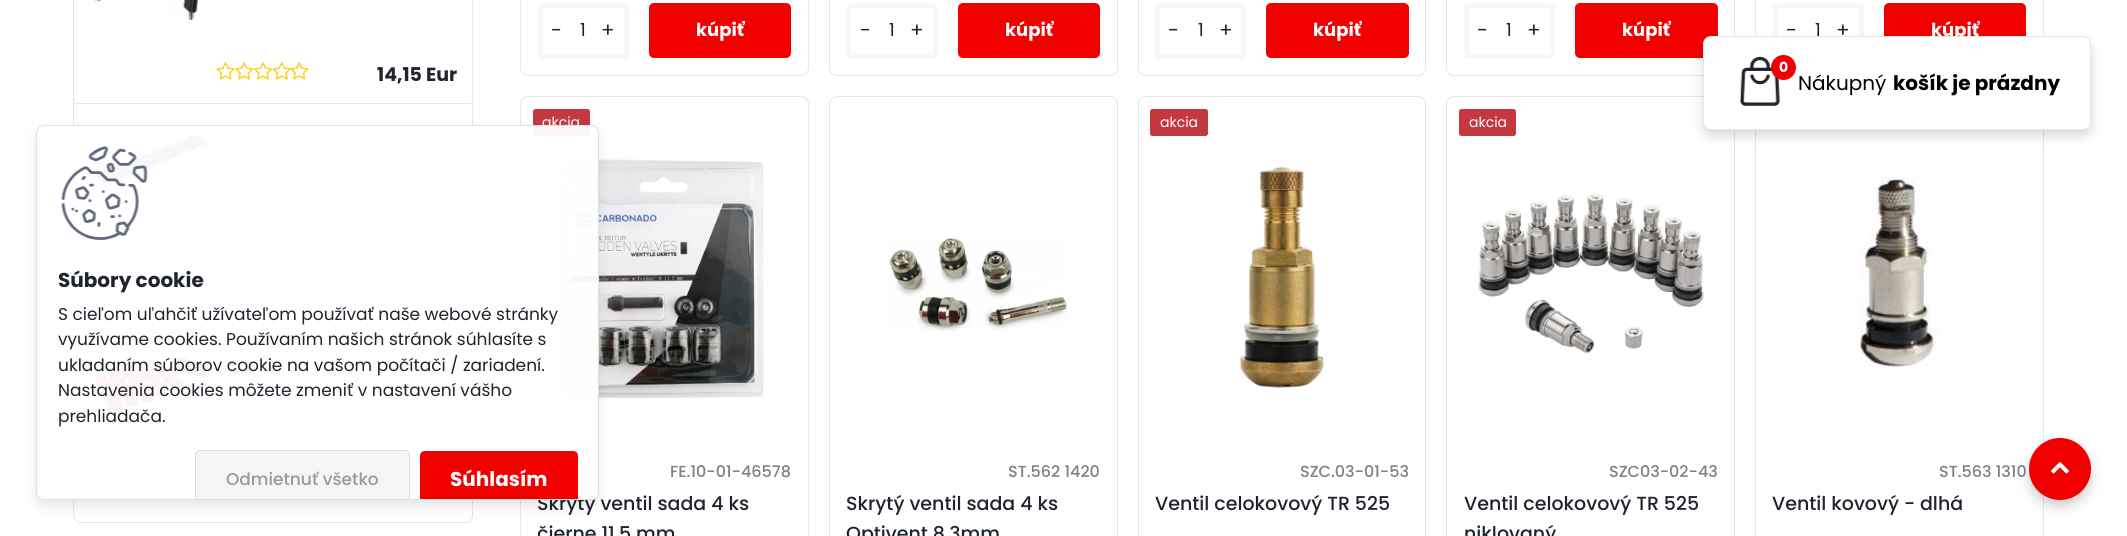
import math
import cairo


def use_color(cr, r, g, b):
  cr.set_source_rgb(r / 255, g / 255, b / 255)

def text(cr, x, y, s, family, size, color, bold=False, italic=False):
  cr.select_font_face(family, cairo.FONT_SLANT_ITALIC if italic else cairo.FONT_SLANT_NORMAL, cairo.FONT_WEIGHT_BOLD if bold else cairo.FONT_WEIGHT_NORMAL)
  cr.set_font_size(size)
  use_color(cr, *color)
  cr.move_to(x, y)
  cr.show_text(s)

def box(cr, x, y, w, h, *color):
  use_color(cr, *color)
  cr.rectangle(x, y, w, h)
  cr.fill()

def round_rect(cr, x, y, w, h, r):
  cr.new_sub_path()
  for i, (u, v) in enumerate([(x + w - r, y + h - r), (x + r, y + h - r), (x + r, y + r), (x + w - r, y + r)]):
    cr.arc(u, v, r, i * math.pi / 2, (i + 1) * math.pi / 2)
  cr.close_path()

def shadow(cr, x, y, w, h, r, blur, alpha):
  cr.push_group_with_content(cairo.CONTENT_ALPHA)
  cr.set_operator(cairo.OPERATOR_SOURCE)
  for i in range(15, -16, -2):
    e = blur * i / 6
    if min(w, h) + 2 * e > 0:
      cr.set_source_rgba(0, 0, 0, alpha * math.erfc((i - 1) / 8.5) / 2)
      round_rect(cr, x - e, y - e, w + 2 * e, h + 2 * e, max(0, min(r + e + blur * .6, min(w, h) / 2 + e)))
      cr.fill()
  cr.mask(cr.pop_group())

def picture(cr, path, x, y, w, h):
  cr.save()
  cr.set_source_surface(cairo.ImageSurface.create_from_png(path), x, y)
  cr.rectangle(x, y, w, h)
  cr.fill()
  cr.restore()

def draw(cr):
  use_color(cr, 255, 255, 255)
  cr.paint()
  round_rect(cr, 73.5, -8.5, 399, 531, 7.5)
  use_color(cr, 230, 230, 230)
  cr.set_line_width(1)
  cr.stroke()
  use_color(cr, 255, 255, 255)
  cr.new_path()
  cr.move_to(74, -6)
  cr.line_to(471, -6)
  cr.line_to(471, 515)
  cr.curve_to(471, 518.5, 468.5, 521, 465, 521)
  cr.line_to(80, 521)
  cr.curve_to(76.5, 521, 74, 518.5, 74, 515)
  cr.close_path()
  cr.fill()
  box(cr, 74, 306, 397, 1, 230, 230, 230)
  picture(cr, "img_08.png", 94, 135, 114, 50)
  picture(cr, "img_03.png", 216, 267, 19, 18)
  picture(cr, "img_04.png", 235, 267, 19, 18)
  picture(cr, "img_05.png", 253, 267, 20, 18)
  picture(cr, "img_06.png", 272, 267, 19, 18)
  picture(cr, "img_07.png", 290, 267, 19, 18)
  use_color(cr, 255, 255, 255)
  cr.new_path()
  cr.move_to(74, 308)
  cr.line_to(471, 308)
  cr.line_to(471, 515)
  cr.curve_to(471, 518.5, 468.5, 521, 465, 521)
  cr.line_to(80, 521)
  cr.curve_to(76.5, 521, 74, 518.5, 74, 515)
  cr.close_path()
  cr.fill()
  picture(cr, "img_09.png", 94, 356, 114, 90)
  round_rect(cr, 520.5, 96.5, 288, 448, 7.5)
  use_color(cr, 230, 230, 230)
  cr.stroke()
  use_color(cr, 197, 56, 63)
  round_rect(cr, 533, 109, 57, 27, 2.5)
  cr.fill()
  picture(cr, "img_10.png", 560, 158, 204, 241)
  cr.save()
  cr.set_fill_rule(cairo.FILL_RULE_EVEN_ODD)
  cr.new_path()
  cr.move_to(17, 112)
  cr.line_to(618, 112)
  cr.line_to(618, 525)
  cr.line_to(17, 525)
  cr.close_path()
  cr.move_to(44, 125)
  cr.line_to(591, 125)
  cr.curve_to(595.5, 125, 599, 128.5, 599, 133)
  cr.line_to(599, 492)
  cr.curve_to(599, 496.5, 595.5, 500, 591, 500)
  cr.line_to(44, 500)
  cr.curve_to(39.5, 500, 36, 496.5, 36, 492)
  cr.line_to(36, 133)
  cr.curve_to(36, 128.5, 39.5, 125, 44, 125)
  cr.close_path()
  cr.clip()
  use_color(cr, 0, 0, 0)
  shadow(cr, 36, 131, 563, 375, 8, 6, 0.1)
  cr.restore()
  box(cr, 74, 103, 397, 1, 230, 230, 230)
  picture(cr, "img_02.png", 94, 0, 104, 20)
  picture(cr, "img_03.png", 216, 62, 19, 18)
  picture(cr, "img_04.png", 235, 62, 19, 18)
  picture(cr, "img_05.png", 253, 62, 20, 18)
  picture(cr, "img_06.png", 272, 62, 19, 18)
  picture(cr, "img_07.png", 290, 62, 19, 18)
  round_rect(cr, 520.5, -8.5, 288, 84, 7.5)
  cr.stroke()
  round_rect(cr, 540.5, 5.5, 86, 51, 2.5)
  use_color(cr, 248, 248, 248)
  cr.set_line_width(5)
  cr.stroke()
  use_color(cr, 242, 0, 0)
  round_rect(cr, 649, 3, 142, 55, 5)
  cr.fill()
  round_rect(cr, 829.5, -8.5, 288, 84, 7.5)
  use_color(cr, 230, 230, 230)
  cr.set_line_width(1)
  cr.stroke()
  round_rect(cr, 848.5, 5.5, 87, 51, 2.5)
  use_color(cr, 248, 248, 248)
  cr.set_line_width(5)
  cr.stroke()
  use_color(cr, 242, 0, 0)
  round_rect(cr, 958, 3, 142, 55, 5)
  cr.fill()
  round_rect(cr, 1138.5, -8.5, 287, 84, 7.5)
  use_color(cr, 230, 230, 230)
  cr.set_line_width(1)
  cr.stroke()
  round_rect(cr, 1157.5, 5.5, 86, 51, 2.5)
  use_color(cr, 248, 248, 248)
  cr.set_line_width(5)
  cr.stroke()
  use_color(cr, 242, 0, 0)
  round_rect(cr, 1266, 3, 143, 55, 5)
  cr.fill()
  round_rect(cr, 1446.5, -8.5, 288, 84, 7.5)
  use_color(cr, 230, 230, 230)
  cr.set_line_width(1)
  cr.stroke()
  round_rect(cr, 1466.5, 5.5, 86, 51, 2.5)
  use_color(cr, 248, 248, 248)
  cr.set_line_width(5)
  cr.stroke()
  use_color(cr, 242, 0, 0)
  round_rect(cr, 1575, 3, 143, 55, 5)
  cr.fill()
  cr.rectangle(1755.5, -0.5, 288, 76)
  use_color(cr, 230, 230, 230)
  cr.set_line_width(1)
  cr.stroke()
  round_rect(cr, 1775.5, 5.5, 86, 51, 2.5)
  use_color(cr, 248, 248, 248)
  cr.set_line_width(5)
  cr.stroke()
  use_color(cr, 242, 0, 0)
  round_rect(cr, 1884, 3, 142, 55, 5)
  cr.fill()
  round_rect(cr, 829.5, 96.5, 288, 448, 7.5)
  use_color(cr, 230, 230, 230)
  cr.set_line_width(1)
  cr.stroke()
  picture(cr, "img_11.png", 889, 238, 179, 94)
  round_rect(cr, 1138.5, 96.5, 287, 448, 7.5)
  cr.stroke()
  use_color(cr, 197, 56, 63)
  round_rect(cr, 1150, 109, 58, 27, 2.5)
  cr.fill()
  picture(cr, "img_12.png", 1240, 166, 85, 222)
  round_rect(cr, 1446.5, 96.5, 288, 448, 7.5)
  use_color(cr, 230, 230, 230)
  cr.stroke()
  use_color(cr, 197, 56, 63)
  round_rect(cr, 1459, 109, 57, 27, 2.5)
  cr.fill()
  picture(cr, "img_13.png", 1477, 193, 227, 161)
  cr.rectangle(1755.5, 96.5, 288, 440)
  use_color(cr, 230, 230, 230)
  cr.stroke()
  picture(cr, "img_14.png", 1859, 177, 81, 190)
  use_color(cr, 0, 0, 0)
  shadow(cr, 1703, 43, 388, 93, 8, 6, 0.15)
  use_color(cr, 255, 255, 255)
  round_rect(cr, 1703, 36, 388, 94, 8)
  cr.fill()
  use_color(cr, 0, 0, 0)
  shadow(cr, 2029, 444, 62, 62, 31, 6, 0.2)
  use_color(cr, 242, 0, 0)
  cr.arc(2060, 469, 31, 0, 2 * math.pi)
  cr.fill()
  picture(cr, "img_16.png", 2051, 462, 18, 12)
  text(cr, 377, 81, "14,15 Eur", "Poppins", 19, (31, 36, 45), bold=True)
  text(cr, 551, 37, "-", "Poppins", 20, (31, 36, 45))
  text(cr, 580, 36, "1", "Poppins", 18, (31, 36, 45))
  text(cr, 601, 37, "+", "Poppins", 20, (31, 36, 45))
  text(cr, 696, 36, "kúpiť", "Poppins", 18, (255, 255, 255), bold=True)
  text(cr, 860, 37, "-", "Poppins", 20, (31, 36, 45))
  text(cr, 889, 36, "1", "Poppins", 18, (31, 36, 45))
  text(cr, 910, 37, "+", "Poppins", 20, (31, 36, 45))
  text(cr, 1005, 36, "kúpiť", "Poppins", 18, (255, 255, 255), bold=True)
  text(cr, 1168, 37, "-", "Poppins", 20, (31, 36, 45))
  text(cr, 1198, 36, "1", "Poppins", 18, (31, 36, 45))
  text(cr, 1219, 37, "+", "Poppins", 20, (31, 36, 45))
  text(cr, 1313, 36, "kúpiť", "Poppins", 18, (255, 255, 255), bold=True)
  text(cr, 1477, 37, "-", "Poppins", 20, (31, 36, 45))
  text(cr, 1506, 36, "1", "Poppins", 18, (31, 36, 45))
  text(cr, 1527, 37, "+", "Poppins", 20, (31, 36, 45))
  text(cr, 1622, 36, "kúpiť", "Poppins", 18, (255, 255, 255), bold=True)
  text(cr, 1786, 37, "-", "Poppins", 20, (31, 36, 45))
  text(cr, 1815, 36, "1", "Poppins", 18, (31, 36, 45))
  text(cr, 1836, 37, "+", "Poppins", 20, (31, 36, 45))
  text(cr, 1931, 36, "kúpiť", "Poppins", 18, (255, 255, 255), bold=True)
  text(cr, 542, 127, "akcia", "Poppins", 14, (255, 255, 255))
  text(cr, 670, 477, "FE.10-01-46578", "Poppins Medium", 16, (128, 128, 128))
  text(cr, 537, 510, "Skrytý ventil sada 4 ks", "Poppins Medium", 19, (31, 36, 45))
  cr.set_source_rgba(1, 1, 1, 0.95)
  round_rect(cr, 36.5, 125.5, 562, 374, 7.5)
  cr.fill_preserve()
  use_color(cr, 224, 224, 224)
  cr.stroke()
  use_color(cr, 242, 0, 0)
  cr.new_path()
  cr.move_to(425, 451)
  cr.line_to(573, 451)
  cr.curve_to(576, 451, 578, 453, 578, 456)
  cr.line_to(578, 499)
  cr.line_to(420, 499)
  cr.line_to(420, 456)
  cr.curve_to(420, 453, 422, 451, 425, 451)
  cr.close_path()
  cr.fill()
  text(cr, 450, 486, "Súhlasím", "Poppins", 20, (255, 255, 255), bold=True)
  use_color(cr, 245, 245, 245)
  cr.new_path()
  cr.move_to(200, 450)
  cr.line_to(405, 450)
  cr.curve_to(408, 450, 410, 452, 410, 455)
  cr.line_to(410, 499)
  cr.line_to(195, 499)
  cr.line_to(195, 455)
  cr.curve_to(195, 452, 197, 450, 200, 450)
  cr.close_path()
  cr.fill()
  cr.set_source_rgba(0, 0, 0, 0.1)
  cr.new_path()
  cr.move_to(200, 450)
  cr.curve_to(197, 450, 195, 452, 195, 455)
  cr.line_to(195, 499)
  cr.line_to(196, 499)
  cr.line_to(196, 455)
  cr.curve_to(196, 453, 198, 451, 200, 451)
  cr.line_to(405, 451)
  cr.curve_to(407, 451, 409, 453, 409, 455)
  cr.line_to(409, 499)
  cr.line_to(410, 499)
  cr.line_to(410, 455)
  cr.curve_to(410, 452, 408, 450, 405, 450)
  cr.close_path()
  cr.fill()
  text(cr, 226, 485, "Odmietnuť všetko", "Poppins Medium", 17, (153, 153, 153))
  text(cr, 58, 422, "prehliadača.", "Poppins", 17, (31, 36, 45))
  text(cr, 58, 396, "Nastavenia cookies môžete zmeniť v nastavení vášho", "Poppins", 17, (31, 36, 45))
  text(cr, 58, 371, "ukladaním súborov cookie na vašom počítači / zariadení.", "Poppins", 17, (31, 36, 45))
  text(cr, 58, 345, "využívame cookies. Používaním našich stránok súhlasíte s", "Poppins", 17, (31, 36, 45))
  text(cr, 58, 320, "S cieľom uľahčiť užívateľom používať naše webové stránky", "Poppins", 17, (31, 36, 45))
  text(cr, 58, 287, "Súbory cookie", "Poppins", 20, (31, 36, 45), bold=True)
  picture(cr, "img_01.png", 61, 146, 87, 94)
  cr.save()
  cr.rectangle(538, 450, 253, 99)
  cr.clip()
  text(cr, 537, 540, "čierne 11,5 mm", "Poppins Medium", 19, (31, 36, 45))
  cr.restore()
  text(cr, 1008, 477, "ST.562 1420", "Poppins Medium", 16, (128, 128, 128))
  text(cr, 846, 510, "Skrytý ventil sada 4 ks", "Poppins Medium", 19, (31, 36, 45))
  text(cr, 846, 540, "Optivent 8,3mm", "Poppins Medium", 19, (31, 36, 45))
  text(cr, 1160, 127, "akcia", "Poppins", 14, (255, 255, 255))
  text(cr, 1300, 477, "SZC.03-01-53", "Poppins Medium", 16, (128, 128, 128))
  text(cr, 1155, 510, "Ventil celokovový TR 525", "Poppins Medium", 19, (31, 36, 45))
  text(cr, 1469, 127, "akcia", "Poppins", 14, (255, 255, 255))
  text(cr, 1609, 477, "SZC03-02-43", "Poppins Medium", 16, (128, 128, 128))
  text(cr, 1464, 510, "Ventil celokovový TR 525", "Poppins Medium", 19, (31, 36, 45))
  text(cr, 1464, 540, "niklovaný", "Poppins Medium", 19, (31, 36, 45))
  text(cr, 1939, 477, "ST.563 1310", "Poppins Medium", 16, (128, 128, 128))
  text(cr, 1772, 510, "Ventil kovový - dlhá", "Poppins Medium", 19, (31, 36, 45))
  round_rect(cr, 1703.5, 36.5, 387, 93, 7.5)
  cr.set_source_rgba(0, 0, 0, 0.1)
  cr.stroke()
  picture(cr, "img_15.png", 1739, 56, 41, 50)
  use_color(cr, 242, 0, 0)
  cr.arc(1783.5, 67.5, 12.5, 0, 2 * math.pi)
  cr.fill()
  text(cr, 1779, 72, "0", "Poppins", 14, (255, 255, 255), bold=True)
  text(cr, 1798, 90, "Nákupný", "Poppins", 20, (0, 0, 0))
  text(cr, 1893, 90, "košík je prázdny", "Poppins", 20, (0, 0, 0), bold=True)


surface = cairo.ImageSurface(cairo.FORMAT_RGB24, 2127, 536)
cr = cairo.Context(surface)
options = cairo.FontOptions()
options.set_hint_metrics(cairo.HINT_METRICS_OFF)
options.set_hint_style(cairo.HINT_STYLE_NONE)
cr.set_font_options(options)
cr.set_miter_limit(4)
draw(cr)
surface.write_to_png("out.png")
